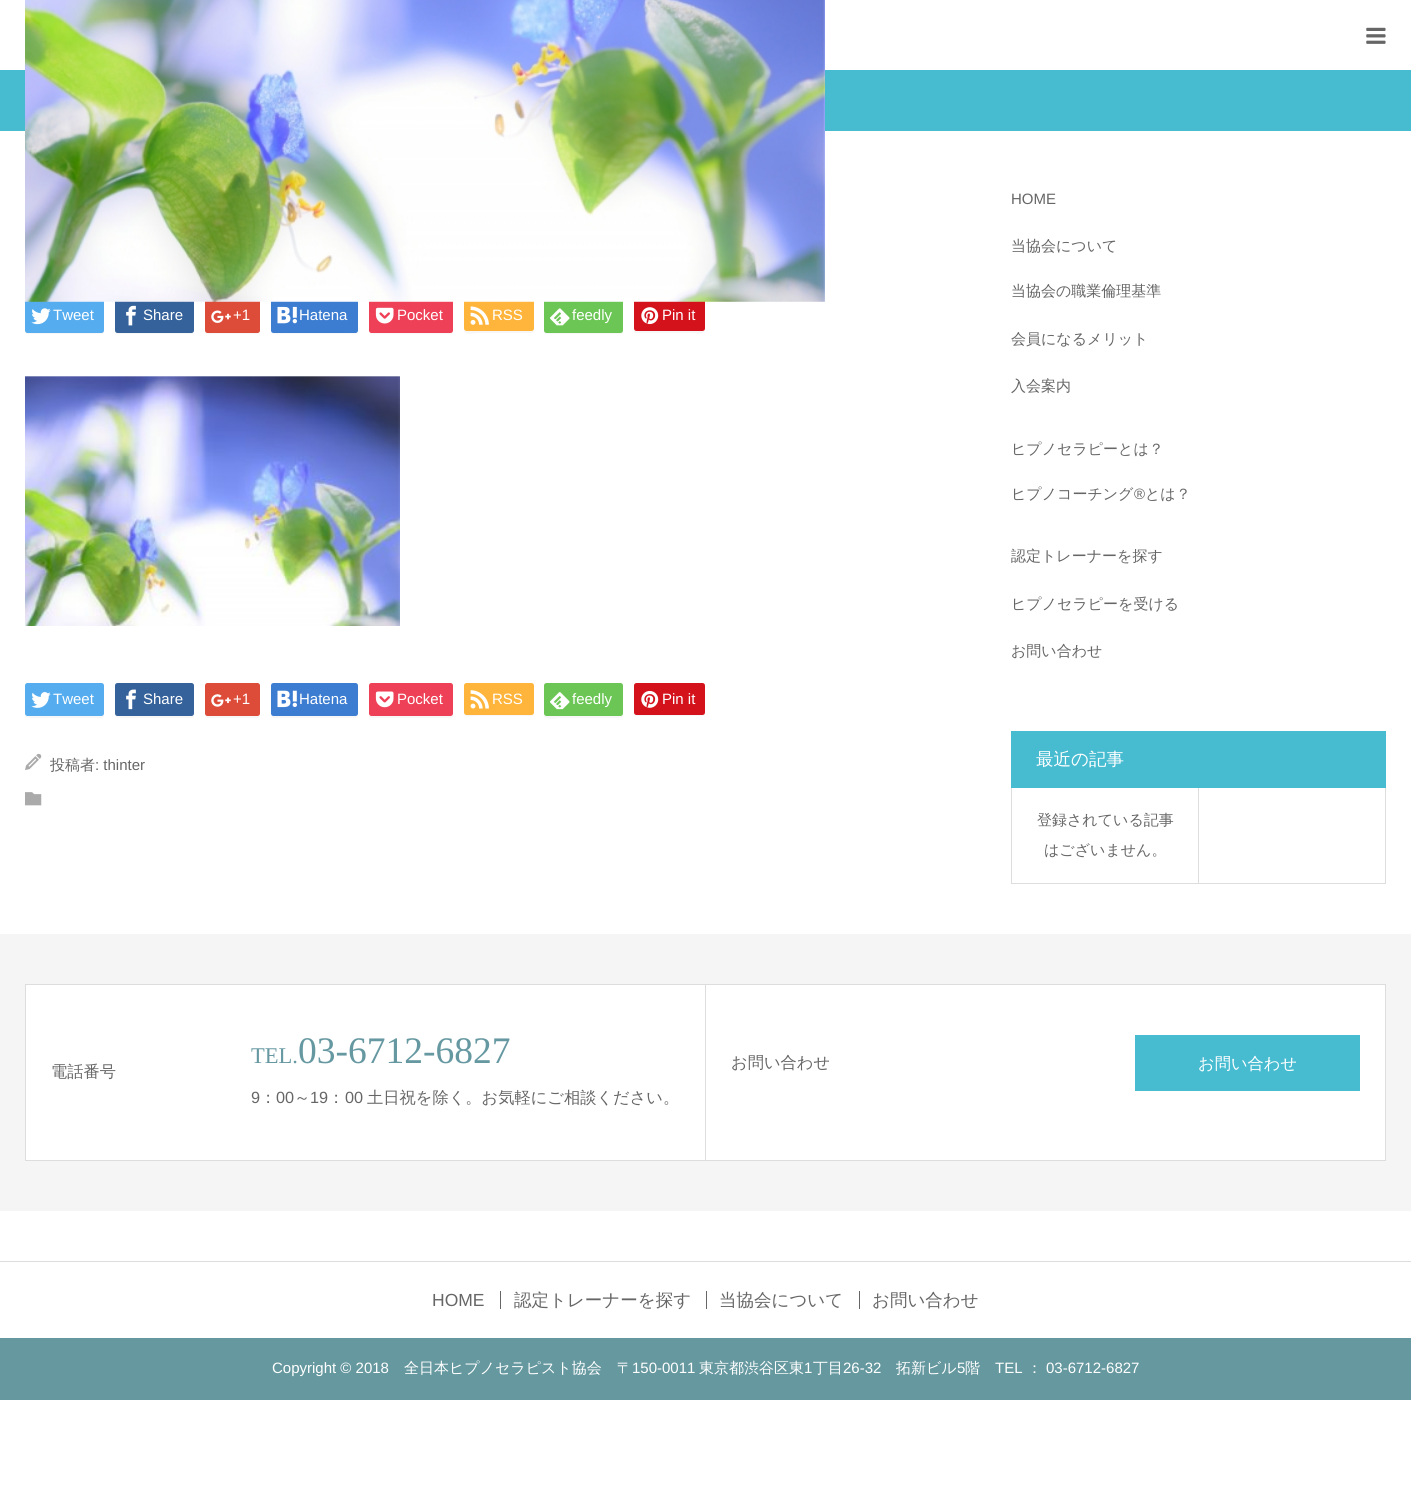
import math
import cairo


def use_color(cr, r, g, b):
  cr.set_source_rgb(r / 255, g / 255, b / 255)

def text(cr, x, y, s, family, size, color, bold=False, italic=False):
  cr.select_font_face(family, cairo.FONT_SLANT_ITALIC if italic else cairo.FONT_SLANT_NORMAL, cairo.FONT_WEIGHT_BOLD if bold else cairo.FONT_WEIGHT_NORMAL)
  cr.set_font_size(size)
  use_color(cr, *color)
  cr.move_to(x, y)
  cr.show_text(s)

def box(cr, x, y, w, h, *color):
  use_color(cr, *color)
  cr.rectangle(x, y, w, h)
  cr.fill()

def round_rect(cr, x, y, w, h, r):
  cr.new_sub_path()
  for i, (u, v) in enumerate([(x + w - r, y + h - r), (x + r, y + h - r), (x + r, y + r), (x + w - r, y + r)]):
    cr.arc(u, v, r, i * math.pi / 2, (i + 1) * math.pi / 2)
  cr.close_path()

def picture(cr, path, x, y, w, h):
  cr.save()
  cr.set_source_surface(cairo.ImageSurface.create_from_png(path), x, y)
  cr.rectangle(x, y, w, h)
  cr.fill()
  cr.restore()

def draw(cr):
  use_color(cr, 255, 255, 255)
  cr.paint()
  box(cr, 0, 70, 1411, 61, 71, 188, 209)
  use_color(cr, 247, 247, 247)
  cr.new_path()
  cr.move_to(25, 330)
  cr.curve_to(25, 332, 25, 334, 28, 334)
  cr.line_to(102, 334)
  cr.curve_to(105, 334, 104, 328, 104, 327)
  cr.line_to(104, 301)
  cr.line_to(104, 330)
  cr.curve_to(104, 331, 103, 332, 101, 332)
  cr.line_to(28, 332)
  cr.curve_to(26, 332, 25, 331, 25, 330)
  cr.close_path()
  cr.fill()
  use_color(cr, 85, 172, 238)
  round_rect(cr, 25, 299, 79, 34, 2.5)
  cr.fill()
  use_color(cr, 247, 247, 247)
  cr.new_path()
  cr.move_to(115, 330)
  cr.curve_to(115, 332, 115, 334, 118, 334)
  cr.line_to(192, 334)
  cr.curve_to(195, 334, 194, 328, 194, 327)
  cr.line_to(194, 301)
  cr.line_to(194, 330)
  cr.curve_to(194, 331, 193, 332, 191, 332)
  cr.line_to(118, 332)
  cr.curve_to(116, 332, 115, 331, 115, 330)
  cr.close_path()
  cr.fill()
  use_color(cr, 53, 98, 154)
  round_rect(cr, 115, 299, 79, 34, 2.5)
  cr.fill()
  use_color(cr, 247, 247, 247)
  cr.new_path()
  cr.move_to(205, 330)
  cr.curve_to(205, 336, 210, 334, 216, 334)
  cr.line_to(249, 334)
  cr.curve_to(255, 334, 260, 336, 260, 330)
  cr.curve_to(260, 331, 259, 332, 258, 332)
  cr.line_to(208, 332)
  cr.curve_to(206, 332, 205, 331, 205, 330)
  cr.close_path()
  cr.fill()
  use_color(cr, 221, 75, 57)
  round_rect(cr, 205, 299, 55, 34, 2.5)
  cr.fill()
  use_color(cr, 247, 247, 247)
  cr.new_path()
  cr.move_to(271, 301)
  cr.line_to(271, 322)
  cr.curve_to(271, 337, 269, 334, 287, 334)
  cr.line_to(342, 334)
  cr.curve_to(362, 334, 358, 337, 358, 317)
  cr.curve_to(358, 314, 359, 303, 357, 301)
  cr.line_to(358, 320)
  cr.curve_to(358, 336, 359, 332, 341, 332)
  cr.line_to(274, 332)
  cr.curve_to(270, 332, 271, 327, 271, 325)
  cr.close_path()
  cr.fill()
  use_color(cr, 60, 125, 209)
  round_rect(cr, 271, 299, 87, 34, 2.5)
  cr.fill()
  use_color(cr, 247, 247, 247)
  cr.new_path()
  cr.move_to(369, 331)
  cr.line_to(369, 332)
  cr.curve_to(369, 333, 370, 334, 372, 334)
  cr.line_to(450, 334)
  cr.curve_to(452, 334, 453, 333, 453, 332)
  cr.line_to(453, 302)
  cr.line_to(452, 301)
  cr.line_to(452, 325)
  cr.curve_to(452, 327, 454, 332, 450, 332)
  cr.line_to(371, 332)
  cr.curve_to(370, 332, 369, 332, 369, 331)
  cr.close_path()
  cr.fill()
  use_color(cr, 238, 64, 86)
  round_rect(cr, 369, 299, 84, 34, 2.5)
  cr.fill()
  use_color(cr, 247, 247, 247)
  cr.new_path()
  cr.move_to(464, 330)
  cr.curve_to(464, 336, 475, 333, 477, 333)
  cr.line_to(521, 333)
  cr.curve_to(538, 333, 534, 335, 534, 316)
  cr.line_to(534, 301)
  cr.line_to(534, 329)
  cr.curve_to(534, 330, 533, 331, 531, 331)
  cr.line_to(466, 331)
  cr.curve_to(465, 331, 464, 331, 464, 330)
  cr.close_path()
  cr.fill()
  use_color(cr, 255, 181, 60)
  round_rect(cr, 464, 299, 70, 32, 2.5)
  cr.fill()
  use_color(cr, 247, 247, 247)
  cr.new_path()
  cr.move_to(544, 331)
  cr.line_to(544, 332)
  cr.curve_to(544, 333, 545, 334, 546, 334)
  cr.line_to(620, 334)
  cr.curve_to(622, 334, 623, 333, 623, 332)
  cr.line_to(623, 302)
  cr.line_to(622, 301)
  cr.line_to(622, 325)
  cr.curve_to(622, 336, 621, 332, 608, 332)
  cr.line_to(559, 332)
  cr.curve_to(558, 332, 546, 335, 544, 331)
  cr.close_path()
  cr.fill()
  use_color(cr, 108, 198, 85)
  round_rect(cr, 544, 299, 79, 34, 2.5)
  cr.fill()
  use_color(cr, 247, 247, 247)
  cr.new_path()
  cr.move_to(634, 330)
  cr.curve_to(634, 331, 634, 333, 636, 333)
  cr.line_to(692, 333)
  cr.curve_to(698, 333, 705, 336, 705, 329)
  cr.line_to(704, 331)
  cr.line_to(702, 331)
  cr.line_to(636, 331)
  cr.close_path()
  cr.fill()
  use_color(cr, 212, 18, 28)
  round_rect(cr, 634, 299, 71, 32, 2.5)
  cr.fill()
  picture(cr, "img_01.png", 25, 0, 800, 302)
  picture(cr, "img_02.png", 1366, 27, 20, 17)
  picture(cr, "img_03.png", 31, 308, 20, 17)
  picture(cr, "img_04.png", 126, 305, 10, 21)
  picture(cr, "img_05.png", 211, 310, 20, 13)
  picture(cr, "img_06.png", 277, 306, 20, 18)
  picture(cr, "img_07.png", 375, 307, 19, 17)
  picture(cr, "img_08.png", 470, 306, 19, 19)
  picture(cr, "img_09.png", 550, 308, 20, 18)
  picture(cr, "img_10.png", 641, 307, 18, 18)
  picture(cr, "img_11.png", 25, 376, 375, 250)
  use_color(cr, 247, 247, 247)
  cr.new_path()
  cr.move_to(25, 714)
  cr.curve_to(25, 715, 25, 716, 26, 717)
  cr.curve_to(28, 719, 49, 718, 52, 718)
  cr.line_to(89, 718)
  cr.curve_to(106, 718, 104, 721, 104, 706)
  cr.line_to(104, 685)
  cr.line_to(104, 714)
  cr.curve_to(104, 715, 103, 716, 101, 716)
  cr.line_to(28, 716)
  cr.curve_to(26, 716, 25, 715, 25, 714)
  cr.close_path()
  cr.fill()
  use_color(cr, 85, 172, 238)
  round_rect(cr, 25, 683, 79, 33, 2.5)
  cr.fill()
  picture(cr, "img_12.png", 31, 692, 20, 16)
  use_color(cr, 247, 247, 247)
  cr.new_path()
  cr.move_to(115, 714)
  cr.curve_to(115, 715, 115, 716, 116, 717)
  cr.curve_to(118, 719, 139, 718, 142, 718)
  cr.line_to(179, 718)
  cr.curve_to(196, 718, 194, 721, 194, 706)
  cr.line_to(194, 685)
  cr.line_to(194, 714)
  cr.curve_to(194, 715, 193, 716, 191, 716)
  cr.line_to(118, 716)
  cr.curve_to(116, 716, 115, 715, 115, 714)
  cr.close_path()
  cr.fill()
  use_color(cr, 53, 98, 154)
  round_rect(cr, 115, 683, 79, 33, 2.5)
  cr.fill()
  picture(cr, "img_13.png", 126, 689, 10, 21)
  use_color(cr, 247, 247, 247)
  cr.new_path()
  cr.move_to(205, 714)
  cr.curve_to(205, 720, 210, 718, 216, 718)
  cr.line_to(249, 718)
  cr.curve_to(255, 718, 260, 720, 260, 714)
  cr.curve_to(260, 715, 259, 716, 258, 716)
  cr.line_to(208, 716)
  cr.curve_to(206, 716, 205, 715, 205, 714)
  cr.close_path()
  cr.fill()
  use_color(cr, 221, 75, 57)
  round_rect(cr, 205, 683, 55, 33, 2.5)
  cr.fill()
  picture(cr, "img_14.png", 211, 694, 20, 13)
  use_color(cr, 247, 247, 247)
  cr.new_path()
  cr.move_to(271, 685)
  cr.line_to(271, 706)
  cr.curve_to(271, 721, 269, 718, 287, 718)
  cr.line_to(342, 718)
  cr.curve_to(362, 718, 358, 721, 358, 701)
  cr.curve_to(358, 698, 359, 687, 358, 685)
  cr.line_to(358, 714)
  cr.curve_to(358, 715, 356, 716, 355, 716)
  cr.line_to(274, 716)
  cr.curve_to(272, 716, 271, 715, 271, 714)
  cr.close_path()
  cr.fill()
  use_color(cr, 60, 125, 209)
  round_rect(cr, 271, 683, 87, 33, 2.5)
  cr.fill()
  picture(cr, "img_15.png", 277, 690, 20, 18)
  use_color(cr, 247, 247, 247)
  cr.new_path()
  cr.move_to(369, 715)
  cr.line_to(369, 716)
  cr.curve_to(369, 717, 370, 718, 372, 718)
  cr.line_to(450, 718)
  cr.curve_to(452, 718, 453, 717, 453, 716)
  cr.line_to(453, 686)
  cr.line_to(452, 685)
  cr.line_to(452, 714)
  cr.curve_to(452, 715, 451, 716, 450, 716)
  cr.line_to(371, 716)
  cr.curve_to(370, 716, 369, 716, 369, 715)
  cr.close_path()
  cr.fill()
  use_color(cr, 238, 64, 86)
  round_rect(cr, 369, 683, 84, 33, 2.5)
  cr.fill()
  picture(cr, "img_16.png", 375, 691, 19, 17)
  use_color(cr, 247, 247, 247)
  cr.new_path()
  cr.move_to(464, 714)
  cr.curve_to(464, 718, 473, 716, 477, 716)
  cr.line_to(521, 716)
  cr.curve_to(536, 716, 534, 718, 534, 704)
  cr.line_to(534, 685)
  cr.line_to(534, 712)
  cr.curve_to(534, 714, 533, 715, 531, 715)
  cr.line_to(466, 715)
  cr.curve_to(465, 715, 464, 714, 464, 714)
  cr.close_path()
  cr.fill()
  use_color(cr, 255, 181, 60)
  round_rect(cr, 464, 683, 70, 32, 2.5)
  cr.fill()
  picture(cr, "img_17.png", 470, 690, 19, 19)
  use_color(cr, 247, 247, 247)
  cr.new_path()
  cr.move_to(544, 715)
  cr.curve_to(544, 721, 557, 718, 559, 718)
  cr.line_to(608, 718)
  cr.curve_to(627, 718, 623, 720, 623, 701)
  cr.curve_to(623, 698, 624, 687, 622, 685)
  cr.line_to(622, 714)
  cr.curve_to(622, 715, 621, 716, 620, 716)
  cr.line_to(546, 716)
  cr.curve_to(545, 716, 544, 716, 544, 715)
  cr.close_path()
  cr.fill()
  use_color(cr, 108, 198, 85)
  round_rect(cr, 544, 683, 79, 33, 2.5)
  cr.fill()
  picture(cr, "img_18.png", 550, 692, 20, 18)
  use_color(cr, 247, 247, 247)
  cr.new_path()
  cr.move_to(634, 714)
  cr.curve_to(634, 715, 635, 716, 636, 716)
  cr.line_to(702, 716)
  cr.curve_to(704, 716, 705, 715, 705, 714)
  cr.line_to(705, 712)
  cr.line_to(704, 714)
  cr.line_to(702, 715)
  cr.line_to(636, 715)
  cr.close_path()
  cr.fill()
  use_color(cr, 212, 18, 28)
  round_rect(cr, 634, 683, 71, 32, 2.5)
  cr.fill()
  picture(cr, "img_19.png", 641, 690, 18, 18)
  picture(cr, "img_20.png", 25, 753, 17, 17)
  picture(cr, "img_21.png", 25, 792, 17, 14)
  box(cr, 1011, 731, 375, 57, 71, 188, 209)
  box(cr, 1385, 788, 1, 96, 221, 221, 221)
  box(cr, 1011, 883, 375, 1, 221, 221, 221)
  box(cr, 1011, 788, 1, 96, 221, 221, 221)
  box(cr, 1198, 788, 1, 95, 221, 221, 221)
  box(cr, 0, 934, 1411, 277, 245, 245, 245)
  use_color(cr, 255, 255, 255)
  cr.rectangle(25.5, 984.5, 680, 176)
  cr.fill_preserve()
  use_color(cr, 221, 221, 221)
  cr.set_line_width(1)
  cr.stroke()
  box(cr, 706, 985, 679, 175, 255, 255, 255)
  box(cr, 706, 984, 680, 1, 221, 221, 221)
  box(cr, 1385, 984, 1, 177, 221, 221, 221)
  box(cr, 706, 1160, 680, 1, 221, 221, 221)
  box(cr, 1135, 1035, 225, 56, 71, 188, 209)
  box(cr, 0, 1261, 1411, 1, 221, 221, 221)
  box(cr, 500, 1291, 1, 18, 102, 102, 102)
  box(cr, 706, 1291, 1, 18, 102, 102, 102)
  box(cr, 859, 1291, 1, 18, 102, 102, 102)
  box(cr, 0, 1338, 1411, 62, 101, 152, 159)
  text(cr, 53, 320, "Tweet", "Liberation Sans", 15, (255, 255, 255))
  text(cr, 143, 320, "Share", "Liberation Sans", 15, (255, 255, 255))
  text(cr, 233, 320, "+1", "Liberation Sans", 15, (255, 255, 255))
  text(cr, 299, 320, "Hatena", "Liberation Sans", 15, (255, 255, 255))
  text(cr, 397, 320, "Pocket", "Liberation Sans", 15, (255, 255, 255))
  text(cr, 492, 320, "RSS", "Liberation Sans", 15, (255, 255, 255))
  text(cr, 572, 320, "feedly", "Liberation Sans", 15, (255, 255, 255))
  text(cr, 662, 320, "Pin it", "Liberation Sans", 15, (255, 255, 255))
  text(cr, 53, 704, "Tweet", "Liberation Sans", 15, (255, 255, 255))
  text(cr, 143, 704, "Share", "Liberation Sans", 15, (255, 255, 255))
  text(cr, 233, 704, "+1", "Liberation Sans", 15, (255, 255, 255))
  text(cr, 299, 704, "Hatena", "Liberation Sans", 15, (255, 255, 255))
  text(cr, 397, 704, "Pocket", "Liberation Sans", 15, (255, 255, 255))
  text(cr, 492, 704, "RSS", "Liberation Sans", 15, (255, 255, 255))
  text(cr, 572, 704, "feedly", "Liberation Sans", 15, (255, 255, 255))
  text(cr, 662, 704, "Pin it", "Liberation Sans", 15, (255, 255, 255))
  text(cr, 50, 770, "投稿者", "WenQuanYi Zen Hei Medium", 15, (102, 102, 102))
  text(cr, 95, 770, ": thinter", "Liberation Sans", 15, (102, 102, 102))
  text(cr, 1011, 204, "HOME", "Liberation Sans", 15, (102, 102, 102))
  text(cr, 1011, 251, "当協会について", "WenQuanYi Zen Hei Medium", 15, (102, 102, 102))
  text(cr, 1011, 296, "当協会の職業倫理基準", "WenQuanYi Zen Hei Medium", 15, (102, 102, 102))
  text(cr, 1011, 344, "会員になるメリット", "WenQuanYi Zen Hei Medium", 15, (102, 102, 102))
  text(cr, 1011, 391, "入会案内", "WenQuanYi Zen Hei Medium", 15, (102, 102, 102))
  text(cr, 1011, 454, "ヒプノセラピーとは？", "WenQuanYi Zen Hei Medium", 15, (102, 102, 102))
  text(cr, 1011, 499, "ヒプノコーチング", "WenQuanYi Zen Hei Medium", 15, (102, 102, 102))
  text(cr, 1134, 499, "®", "Liberation Sans", 15, (102, 102, 102))
  text(cr, 1145, 499, "とは？", "WenQuanYi Zen Hei Medium", 15, (102, 102, 102))
  text(cr, 1011, 561, "認定トレーナーを探す", "WenQuanYi Zen Hei Medium", 15, (102, 102, 102))
  text(cr, 1011, 609, "ヒプノセラピーを受ける", "WenQuanYi Zen Hei Medium", 15, (102, 102, 102))
  text(cr, 1011, 656, "お問い合わせ", "WenQuanYi Zen Hei Medium", 15, (102, 102, 102))
  text(cr, 1036, 765, "最近の記事", "WenQuanYi Zen Hei Medium", 17.5, (255, 255, 255))
  text(cr, 1037, 825, "登録されている記事", "WenQuanYi Zen Hei Medium", 15, (102, 102, 102))
  text(cr, 1044, 855, "はございません。", "WenQuanYi Zen Hei Medium", 15, (102, 102, 102))
  text(cr, 51, 1077, "電話番号", "WenQuanYi Zen Hei Medium", 16.25, (102, 102, 102))
  text(cr, 251, 1063, "TEL.", "Liberation Serif", 22.5, (102, 152, 161))
  text(cr, 298, 1063, "03-6712-6827", "Liberation Serif", 37.5, (102, 152, 161))
  text(cr, 251, 1103, "9", "Liberation Sans", 16.25, (102, 102, 102))
  text(cr, 260, 1103, "：", "WenQuanYi Zen Hei Medium", 16.25, (102, 102, 102))
  text(cr, 276, 1103, "00", "Liberation Sans", 16.25, (102, 102, 102))
  text(cr, 294, 1103, "～", "WenQuanYi Zen Hei Medium", 16.25, (102, 102, 102))
  text(cr, 310, 1103, "19", "Liberation Sans", 16.25, (102, 102, 102))
  text(cr, 328, 1103, "：", "WenQuanYi Zen Hei Medium", 16.25, (102, 102, 102))
  text(cr, 345, 1103, "00", "Liberation Sans", 16.25, (102, 102, 102))
  text(cr, 367, 1103, "土日祝を除く。お気軽にご相談ください。", "WenQuanYi Zen Hei Medium", 16.25, (102, 102, 102))
  text(cr, 731, 1068, "お問い合わせ", "WenQuanYi Zen Hei Medium", 16.25, (102, 102, 102))
  text(cr, 1198, 1069, "お問い合わせ", "WenQuanYi Zen Hei Medium", 16.25, (255, 255, 255))
  text(cr, 432, 1306, "HOME", "Liberation Sans", 17.5, (102, 102, 102))
  text(cr, 514, 1306, "認定トレーナーを探す", "WenQuanYi Zen Hei Medium", 17.5, (102, 102, 102))
  text(cr, 719, 1306, "当協会について", "WenQuanYi Zen Hei Medium", 17.5, (102, 102, 102))
  text(cr, 872, 1306, "お問い合わせ", "WenQuanYi Zen Hei Medium", 17.5, (102, 102, 102))
  text(cr, 272, 1373, "Copyright © 2018", "Liberation Sans", 15, (255, 255, 255))
  text(cr, 404, 1373, "全日本ヒプノセラピスト協会　〒", "WenQuanYi Zen Hei Medium", 15, (255, 255, 255))
  text(cr, 632, 1373, "150-0011", "Liberation Sans", 15, (255, 255, 255))
  text(cr, 699, 1373, "東京都渋谷区東", "WenQuanYi Zen Hei Medium", 15, (255, 255, 255))
  text(cr, 804, 1373, "1", "Liberation Sans", 15, (255, 255, 255))
  text(cr, 813, 1373, "丁目", "WenQuanYi Zen Hei Medium", 15, (255, 255, 255))
  text(cr, 843, 1373, "26-32", "Liberation Sans", 15, (255, 255, 255))
  text(cr, 896, 1373, "拓新ビル", "WenQuanYi Zen Hei Medium", 15, (255, 255, 255))
  text(cr, 957, 1373, "5", "Liberation Sans", 15, (255, 255, 255))
  text(cr, 965, 1373, "階", "WenQuanYi Zen Hei Medium", 15, (255, 255, 255))
  text(cr, 995, 1373, "TEL", "Liberation Sans", 15, (255, 255, 255))
  text(cr, 1027, 1373, "：", "WenQuanYi Zen Hei Medium", 15, (255, 255, 255))
  text(cr, 1046, 1373, "03-6712-6827", "Liberation Sans", 15, (255, 255, 255))


surface = cairo.ImageSurface(cairo.FORMAT_RGB24, 1411, 1495)
cr = cairo.Context(surface)
options = cairo.FontOptions()
options.set_hint_metrics(cairo.HINT_METRICS_OFF)
options.set_hint_style(cairo.HINT_STYLE_NONE)
cr.set_font_options(options)
cr.set_miter_limit(4)
draw(cr)
surface.write_to_png("out.png")
